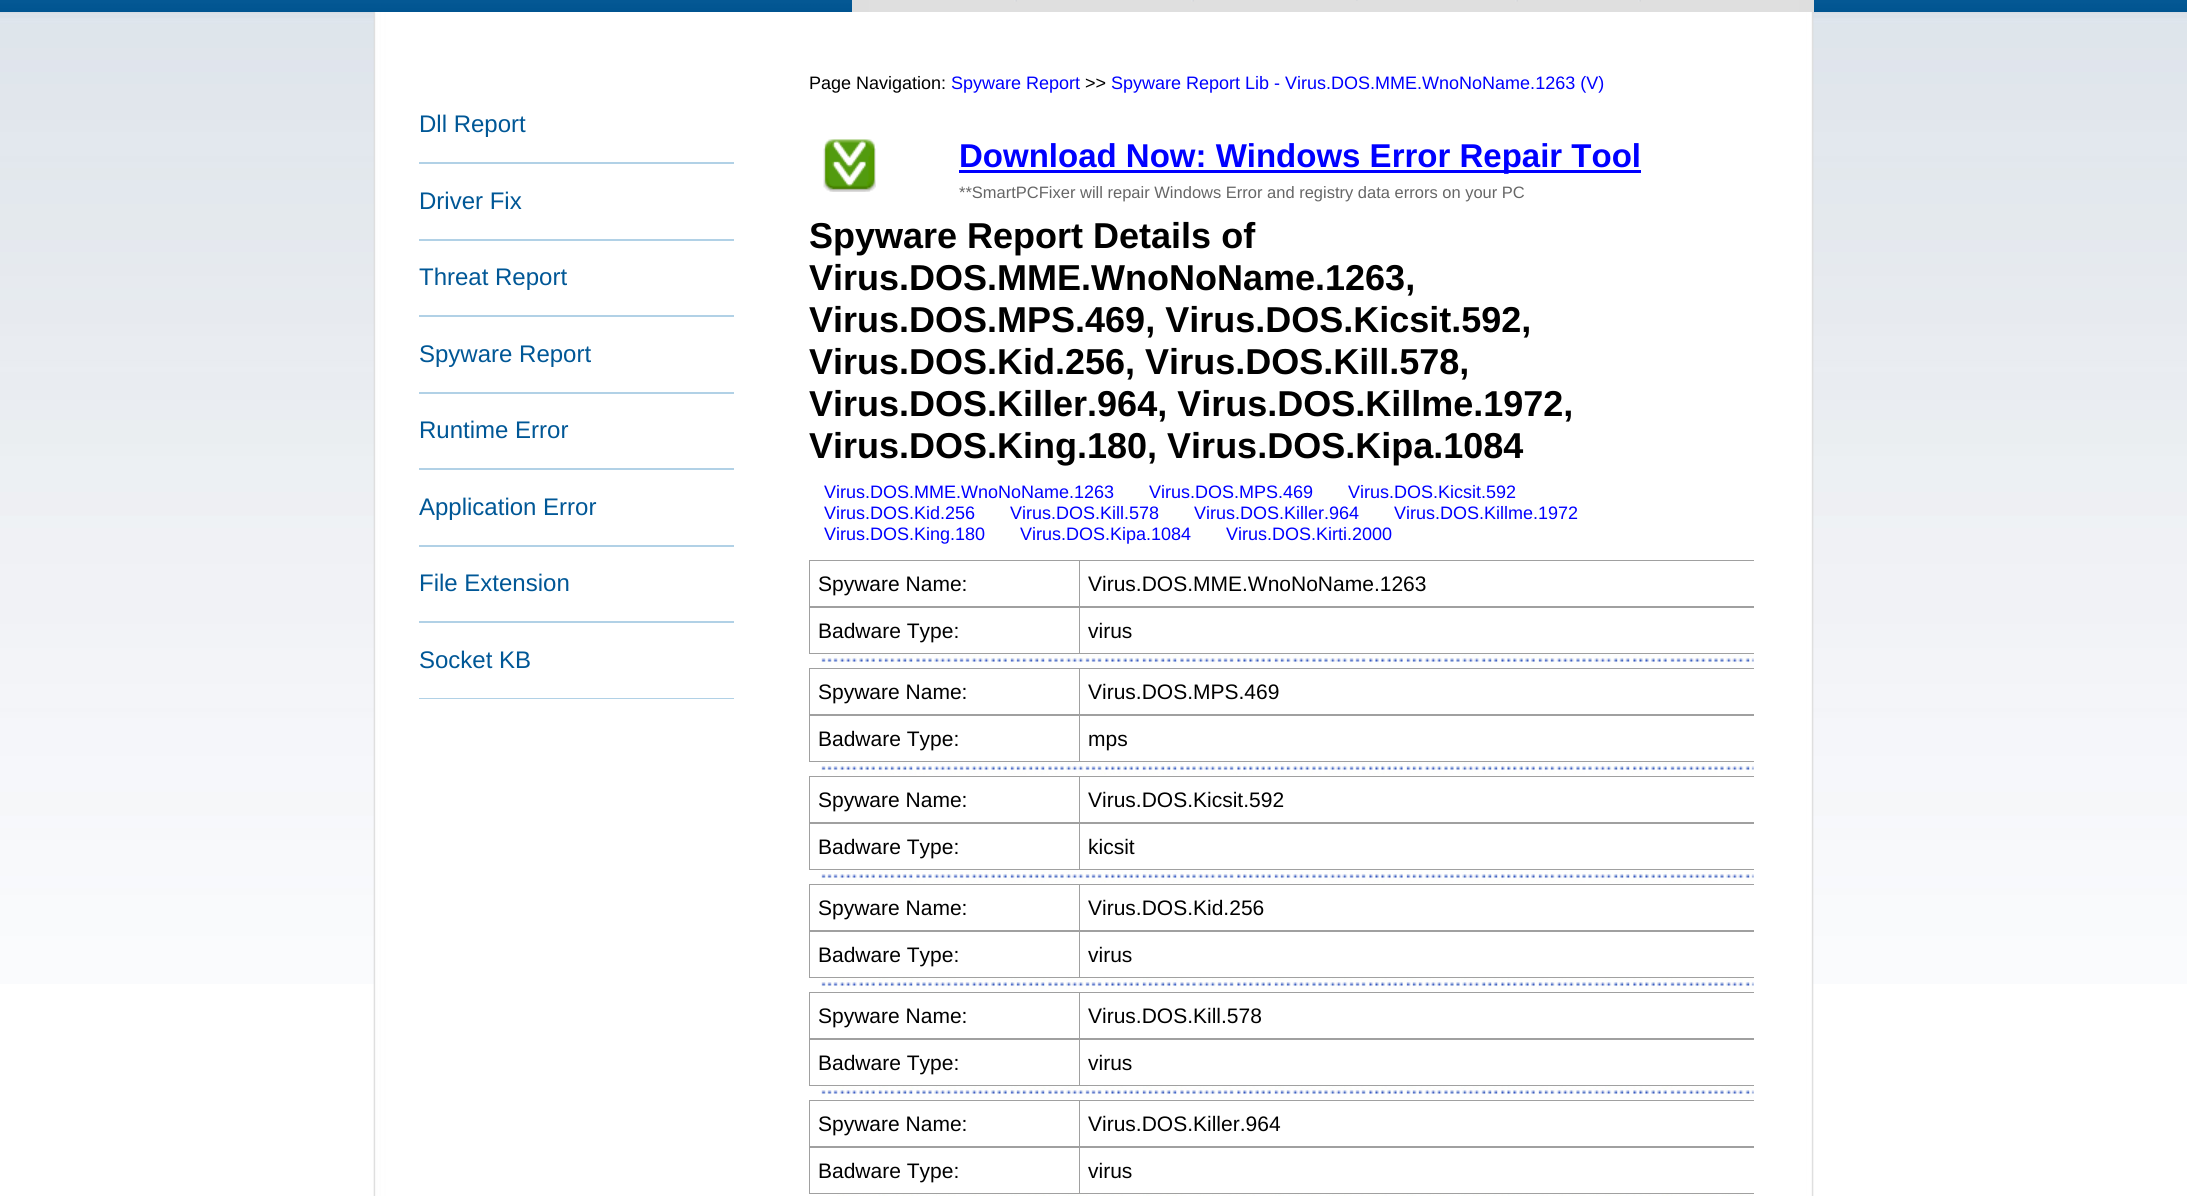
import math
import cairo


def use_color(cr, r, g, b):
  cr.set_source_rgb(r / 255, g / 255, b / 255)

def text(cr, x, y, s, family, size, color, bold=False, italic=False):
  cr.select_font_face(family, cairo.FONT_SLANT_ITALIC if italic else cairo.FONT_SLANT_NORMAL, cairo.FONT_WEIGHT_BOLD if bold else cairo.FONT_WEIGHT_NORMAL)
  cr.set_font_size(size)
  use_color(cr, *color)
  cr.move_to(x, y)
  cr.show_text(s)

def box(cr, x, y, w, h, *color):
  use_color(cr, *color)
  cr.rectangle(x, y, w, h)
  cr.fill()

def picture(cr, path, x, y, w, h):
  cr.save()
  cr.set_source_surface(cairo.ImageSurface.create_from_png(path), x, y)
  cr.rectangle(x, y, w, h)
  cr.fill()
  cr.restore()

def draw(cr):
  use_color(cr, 255, 255, 255)
  cr.paint()
  picture(cr, "img_01.png", 0, 0, 2187, 12)
  box(cr, 852, 0, 17, 12, 222, 222, 222)
  box(cr, 869, 0, 930, 12, 223, 223, 223)
  picture(cr, "img_02.png", 1014, 0, 3, 2)
  picture(cr, "img_03.png", 1191, 0, 3, 2)
  picture(cr, "img_04.png", 1356, 0, 2, 1)
  picture(cr, "img_03.png", 1515, 0, 3, 2)
  picture(cr, "img_02.png", 1638, 0, 3, 2)
  box(cr, 1799, 0, 15, 12, 222, 222, 222)
  picture(cr, "img_05.png", 0, 12, 2187, 972)
  picture(cr, "img_06.png", 373, 12, 1441, 1184)
  box(cr, 419, 162, 315, 2, 177, 209, 230)
  box(cr, 419, 239, 315, 2, 177, 209, 230)
  box(cr, 419, 315, 315, 2, 177, 209, 230)
  box(cr, 419, 392, 315, 2, 177, 209, 230)
  box(cr, 419, 468, 315, 2, 177, 209, 230)
  box(cr, 419, 545, 315, 2, 177, 209, 230)
  box(cr, 419, 621, 315, 2, 177, 209, 230)
  box(cr, 419, 698, 315, 1, 177, 209, 230)
  picture(cr, "img_07.png", 823, 139, 53, 53)
  box(cr, 959, 170, 682, 3, 0, 0, 255)
  box(cr, 809, 560, 945, 94, 160, 160, 160)
  box(cr, 810, 561, 269, 45, 255, 255, 255)
  box(cr, 1080, 561, 674, 45, 255, 255, 255)
  box(cr, 810, 608, 269, 45, 255, 255, 255)
  box(cr, 1080, 608, 674, 45, 255, 255, 255)
  picture(cr, "img_08.png", 821, 654, 933, 13)
  box(cr, 809, 668, 945, 94, 160, 160, 160)
  box(cr, 810, 669, 269, 45, 255, 255, 255)
  box(cr, 1080, 669, 674, 45, 255, 255, 255)
  box(cr, 810, 716, 269, 45, 255, 255, 255)
  box(cr, 1080, 716, 674, 45, 255, 255, 255)
  picture(cr, "img_08.png", 821, 762, 933, 13)
  box(cr, 809, 776, 945, 94, 160, 160, 160)
  box(cr, 810, 777, 269, 45, 255, 255, 255)
  box(cr, 1080, 777, 674, 45, 255, 255, 255)
  box(cr, 810, 824, 269, 45, 255, 255, 255)
  box(cr, 1080, 824, 674, 45, 255, 255, 255)
  picture(cr, "img_08.png", 821, 870, 933, 13)
  box(cr, 809, 884, 945, 94, 160, 160, 160)
  box(cr, 810, 885, 269, 45, 255, 255, 255)
  box(cr, 1080, 885, 674, 45, 255, 255, 255)
  box(cr, 810, 932, 269, 45, 255, 255, 255)
  box(cr, 1080, 932, 674, 45, 255, 255, 255)
  picture(cr, "img_08.png", 821, 978, 933, 13)
  box(cr, 809, 992, 945, 94, 160, 160, 160)
  box(cr, 810, 993, 269, 45, 255, 255, 255)
  box(cr, 1080, 993, 674, 45, 255, 255, 255)
  box(cr, 810, 1040, 269, 45, 255, 255, 255)
  box(cr, 1080, 1040, 674, 45, 255, 255, 255)
  picture(cr, "img_08.png", 821, 1086, 933, 13)
  box(cr, 809, 1100, 945, 94, 160, 160, 160)
  box(cr, 810, 1101, 269, 45, 255, 255, 255)
  box(cr, 1080, 1101, 674, 45, 255, 255, 255)
  box(cr, 810, 1148, 269, 45, 255, 255, 255)
  box(cr, 1080, 1148, 674, 45, 255, 255, 255)
  picture(cr, "img_09.png", 837, 1194, 916, 2)
  text(cr, 419, 132, "Dll Report", "Liberation Sans", 24, (0, 87, 150))
  text(cr, 419, 209, "Driver Fix", "Liberation Sans", 24, (0, 87, 150))
  text(cr, 419, 285, "Threat Report", "Liberation Sans", 24, (0, 87, 150))
  text(cr, 419, 362, "Spyware Report", "Liberation Sans", 24, (0, 87, 150))
  text(cr, 419, 438, "Runtime Error", "Liberation Sans", 24, (0, 87, 150))
  text(cr, 419, 515, "Application Error", "Liberation Sans", 24, (0, 87, 150))
  text(cr, 419, 591, "File Extension", "Liberation Sans", 24, (0, 87, 150))
  text(cr, 419, 668, "Socket KB", "Liberation Sans", 24, (0, 87, 150))
  text(cr, 809, 89, "Page Navigation:", "Liberation Sans", 18, (0, 0, 0))
  text(cr, 951, 89, "Spyware Report", "Liberation Sans", 18, (0, 0, 255))
  text(cr, 1085, 89, ">>", "Liberation Sans", 18, (0, 0, 0))
  text(cr, 1111, 89, "Spyware Report Lib - Virus.DOS.MME.WnoNoName.1263 (V)", "Liberation Sans", 18, (0, 0, 255))
  text(cr, 959, 167, "Download Now: Windows Error Repair Tool", "Liberation Sans", 33, (0, 0, 255), bold=True)
  text(cr, 959, 198, "**SmartPCFixer will repair Windows Error and registry data errors on your PC", "Liberation Sans", 16.5, (102, 102, 102))
  text(cr, 809, 248, "Spyware Report Details of", "Liberation Sans", 36, (0, 0, 0), bold=True)
  text(cr, 809, 290, "Virus.DOS.MME.WnoNoName.1263,", "Liberation Sans", 36, (0, 0, 0), bold=True)
  text(cr, 809, 332, "Virus.DOS.MPS.469, Virus.DOS.Kicsit.592,", "Liberation Sans", 36, (0, 0, 0), bold=True)
  text(cr, 809, 374, "Virus.DOS.Kid.256, Virus.DOS.Kill.578,", "Liberation Sans", 36, (0, 0, 0), bold=True)
  text(cr, 809, 416, "Virus.DOS.Killer.964, Virus.DOS.Killme.1972,", "Liberation Sans", 36, (0, 0, 0), bold=True)
  text(cr, 809, 458, "Virus.DOS.King.180, Virus.DOS.Kipa.1084", "Liberation Sans", 36, (0, 0, 0), bold=True)
  text(cr, 824, 498, "Virus.DOS.MME.WnoNoName.1263", "Liberation Sans", 18, (0, 0, 255))
  text(cr, 1149, 498, "Virus.DOS.MPS.469", "Liberation Sans", 18, (0, 0, 255))
  text(cr, 1348, 498, "Virus.DOS.Kicsit.592", "Liberation Sans", 18, (0, 0, 255))
  text(cr, 824, 519, "Virus.DOS.Kid.256", "Liberation Sans", 18, (0, 0, 255))
  text(cr, 1010, 519, "Virus.DOS.Kill.578", "Liberation Sans", 18, (0, 0, 255))
  text(cr, 1194, 519, "Virus.DOS.Killer.964", "Liberation Sans", 18, (0, 0, 255))
  text(cr, 1394, 519, "Virus.DOS.Killme.1972", "Liberation Sans", 18, (0, 0, 255))
  text(cr, 824, 540, "Virus.DOS.King.180", "Liberation Sans", 18, (0, 0, 255))
  text(cr, 1020, 540, "Virus.DOS.Kipa.1084", "Liberation Sans", 18, (0, 0, 255))
  text(cr, 1226, 540, "Virus.DOS.Kirti.2000", "Liberation Sans", 18, (0, 0, 255))
  text(cr, 818, 591, "Spyware Name:", "Liberation Sans", 21, (0, 0, 0))
  text(cr, 1088, 591, "Virus.DOS.MME.WnoNoName.1263", "Liberation Sans", 21, (0, 0, 0))
  text(cr, 818, 638, "Badware Type:", "Liberation Sans", 21, (0, 0, 0))
  text(cr, 1088, 638, "virus", "Liberation Sans", 21, (0, 0, 0))
  text(cr, 818, 699, "Spyware Name:", "Liberation Sans", 21, (0, 0, 0))
  text(cr, 1088, 699, "Virus.DOS.MPS.469", "Liberation Sans", 21, (0, 0, 0))
  text(cr, 818, 746, "Badware Type:", "Liberation Sans", 21, (0, 0, 0))
  text(cr, 1088, 746, "mps", "Liberation Sans", 21, (0, 0, 0))
  text(cr, 818, 807, "Spyware Name:", "Liberation Sans", 21, (0, 0, 0))
  text(cr, 1088, 807, "Virus.DOS.Kicsit.592", "Liberation Sans", 21, (0, 0, 0))
  text(cr, 818, 854, "Badware Type:", "Liberation Sans", 21, (0, 0, 0))
  text(cr, 1088, 854, "kicsit", "Liberation Sans", 21, (0, 0, 0))
  text(cr, 818, 915, "Spyware Name:", "Liberation Sans", 21, (0, 0, 0))
  text(cr, 1088, 915, "Virus.DOS.Kid.256", "Liberation Sans", 21, (0, 0, 0))
  text(cr, 818, 962, "Badware Type:", "Liberation Sans", 21, (0, 0, 0))
  text(cr, 1088, 962, "virus", "Liberation Sans", 21, (0, 0, 0))
  text(cr, 818, 1023, "Spyware Name:", "Liberation Sans", 21, (0, 0, 0))
  text(cr, 1088, 1023, "Virus.DOS.Kill.578", "Liberation Sans", 21, (0, 0, 0))
  text(cr, 818, 1070, "Badware Type:", "Liberation Sans", 21, (0, 0, 0))
  text(cr, 1088, 1070, "virus", "Liberation Sans", 21, (0, 0, 0))
  text(cr, 818, 1131, "Spyware Name:", "Liberation Sans", 21, (0, 0, 0))
  text(cr, 1088, 1131, "Virus.DOS.Killer.964", "Liberation Sans", 21, (0, 0, 0))
  text(cr, 818, 1178, "Badware Type:", "Liberation Sans", 21, (0, 0, 0))
  text(cr, 1088, 1178, "virus", "Liberation Sans", 21, (0, 0, 0))


surface = cairo.ImageSurface(cairo.FORMAT_RGB24, 2187, 1196)
cr = cairo.Context(surface)
options = cairo.FontOptions()
options.set_hint_metrics(cairo.HINT_METRICS_OFF)
options.set_hint_style(cairo.HINT_STYLE_NONE)
cr.set_font_options(options)
cr.set_miter_limit(4)
draw(cr)
surface.write_to_png("out.png")
